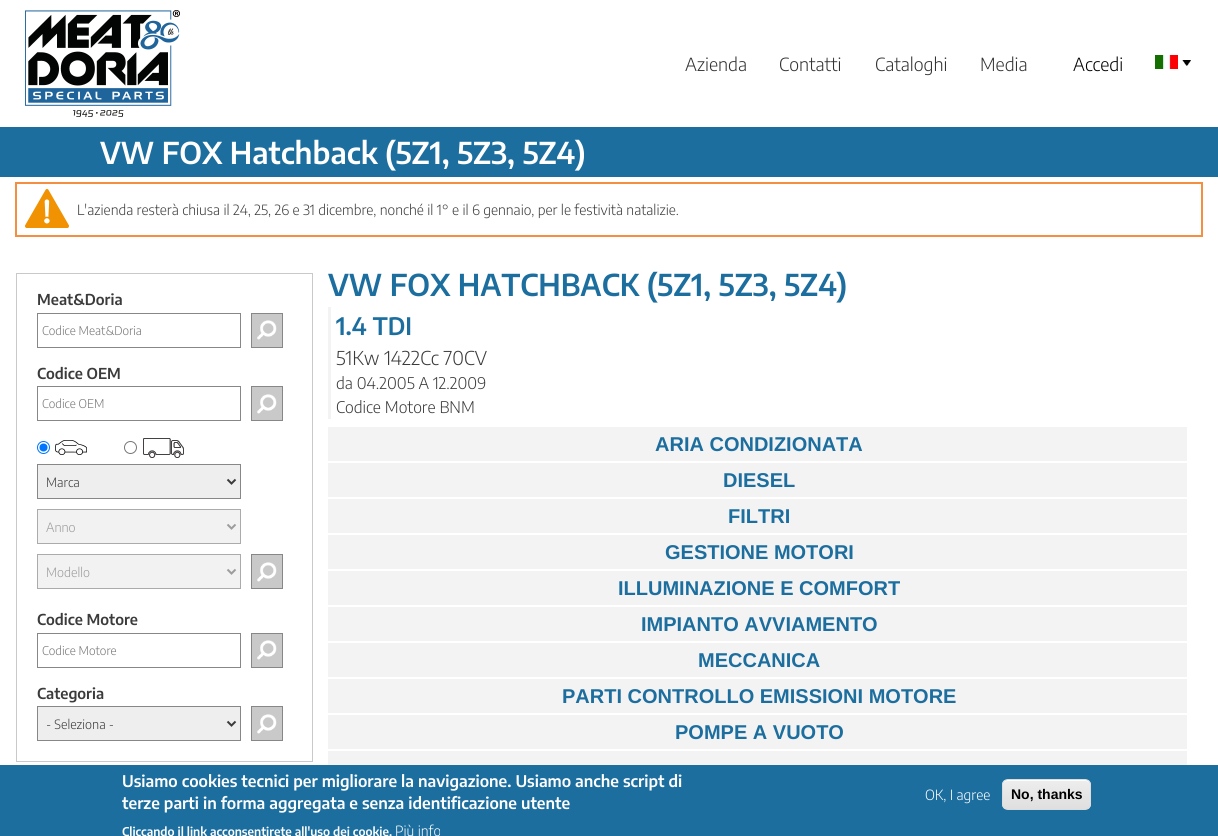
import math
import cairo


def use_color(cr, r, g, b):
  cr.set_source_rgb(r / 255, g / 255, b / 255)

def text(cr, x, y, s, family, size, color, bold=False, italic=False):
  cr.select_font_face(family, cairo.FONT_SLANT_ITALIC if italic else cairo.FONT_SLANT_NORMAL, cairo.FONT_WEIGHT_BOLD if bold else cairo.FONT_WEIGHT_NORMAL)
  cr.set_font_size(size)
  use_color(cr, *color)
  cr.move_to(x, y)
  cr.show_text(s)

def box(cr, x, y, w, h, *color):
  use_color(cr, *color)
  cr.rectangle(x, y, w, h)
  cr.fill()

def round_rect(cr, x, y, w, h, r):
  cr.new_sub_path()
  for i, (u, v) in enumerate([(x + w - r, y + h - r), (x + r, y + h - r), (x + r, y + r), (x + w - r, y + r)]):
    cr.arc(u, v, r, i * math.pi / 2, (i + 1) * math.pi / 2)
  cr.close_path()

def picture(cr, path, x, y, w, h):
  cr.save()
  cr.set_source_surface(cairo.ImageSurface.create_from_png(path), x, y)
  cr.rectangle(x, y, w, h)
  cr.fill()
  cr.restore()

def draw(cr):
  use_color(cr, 255, 255, 255)
  cr.paint()
  picture(cr, "img_01.png", 25, 10, 155, 107)
  picture(cr, "img_02.png", 1155, 55, 23, 14)
  picture(cr, "img_03.png", 1182, 60, 9, 6)
  box(cr, 0, 127, 1218, 50, 28, 110, 159)
  picture(cr, "img_04.png", 25, 189, 44, 39)
  cr.rectangle(16, 183, 1186, 53)
  use_color(cr, 244, 143, 66)
  cr.stroke()
  cr.rectangle(16.5, 273.5, 296, 488)
  use_color(cr, 201, 201, 201)
  cr.set_line_width(1)
  cr.stroke()
  cr.rectangle(37.5, 313.5, 203, 34)
  use_color(cr, 135, 135, 135)
  cr.stroke()
  box(cr, 252, 314, 30, 33, 201, 201, 201)
  picture(cr, "img_05.png", 257, 320, 20, 20)
  cr.rectangle(251.5, 313.5, 31, 34)
  use_color(cr, 135, 135, 135)
  cr.stroke()
  cr.rectangle(37.5, 386.5, 203, 34)
  cr.stroke()
  box(cr, 252, 387, 30, 33, 201, 201, 201)
  picture(cr, "img_05.png", 257, 394, 20, 20)
  cr.rectangle(251.5, 386.5, 31, 34)
  use_color(cr, 135, 135, 135)
  cr.stroke()
  cr.arc(43.5, 447.5, 6, 0, 2 * math.pi)
  use_color(cr, 0, 117, 255)
  cr.stroke()
  cr.arc(43.5, 447.5, 4, 0, 2 * math.pi)
  cr.fill()
  picture(cr, "img_06.png", 55, 440, 32, 15)
  cr.arc(130.5, 447.5, 6, 0, 2 * math.pi)
  use_color(cr, 118, 118, 118)
  cr.stroke()
  picture(cr, "img_07.png", 143, 438, 41, 20)
  use_color(cr, 238, 238, 238)
  cr.rectangle(37.5, 464.5, 203, 34)
  cr.fill_preserve()
  use_color(cr, 135, 135, 135)
  cr.stroke()
  cr.new_path()
  cr.move_to(227.5, 479.5)
  cr.line_to(231.5, 483.5)
  cr.line_to(235.5, 479.5)
  use_color(cr, 59, 59, 59)
  cr.set_line_width(2)
  cr.stroke()
  use_color(cr, 242, 242, 242)
  cr.rectangle(37.5, 509.5, 203, 34)
  cr.fill_preserve()
  use_color(cr, 171, 171, 171)
  cr.set_line_width(1)
  cr.stroke()
  cr.new_path()
  cr.move_to(227.5, 524.5)
  cr.line_to(231.5, 528.5)
  cr.line_to(235.5, 524.5)
  use_color(cr, 156, 156, 156)
  cr.set_line_width(2)
  cr.stroke()
  use_color(cr, 242, 242, 242)
  cr.rectangle(37.5, 554.5, 203, 34)
  cr.fill_preserve()
  use_color(cr, 171, 171, 171)
  cr.set_line_width(1)
  cr.stroke()
  cr.new_path()
  cr.move_to(227.5, 569.5)
  cr.line_to(231.5, 573.5)
  cr.line_to(235.5, 569.5)
  use_color(cr, 156, 156, 156)
  cr.set_line_width(2)
  cr.stroke()
  box(cr, 252, 555, 30, 33, 201, 201, 201)
  picture(cr, "img_05.png", 257, 562, 20, 20)
  cr.rectangle(251.5, 554.5, 31, 34)
  use_color(cr, 135, 135, 135)
  cr.set_line_width(1)
  cr.stroke()
  cr.rectangle(37.5, 633.5, 203, 34)
  cr.stroke()
  box(cr, 252, 634, 30, 33, 201, 201, 201)
  picture(cr, "img_05.png", 257, 640, 20, 20)
  cr.rectangle(251.5, 633.5, 31, 34)
  use_color(cr, 135, 135, 135)
  cr.stroke()
  use_color(cr, 238, 238, 238)
  cr.rectangle(37.5, 706.5, 203, 34)
  cr.fill_preserve()
  use_color(cr, 135, 135, 135)
  cr.stroke()
  cr.new_path()
  cr.move_to(227.5, 721.5)
  cr.line_to(231.5, 725.5)
  cr.line_to(235.5, 721.5)
  use_color(cr, 59, 59, 59)
  cr.set_line_width(2)
  cr.stroke()
  box(cr, 252, 707, 30, 33, 201, 201, 201)
  picture(cr, "img_05.png", 257, 714, 20, 20)
  cr.rectangle(251.5, 706.5, 31, 34)
  use_color(cr, 135, 135, 135)
  cr.set_line_width(1)
  cr.stroke()
  box(cr, 328, 307, 3, 112, 243, 243, 243)
  box(cr, 328, 427, 859, 34, 243, 243, 243)
  box(cr, 328, 463, 859, 34, 243, 243, 243)
  box(cr, 328, 499, 859, 34, 243, 243, 243)
  box(cr, 328, 535, 859, 34, 243, 243, 243)
  box(cr, 328, 571, 859, 34, 243, 243, 243)
  box(cr, 328, 607, 859, 34, 243, 243, 243)
  box(cr, 328, 643, 859, 34, 243, 243, 243)
  box(cr, 328, 679, 859, 34, 243, 243, 243)
  box(cr, 328, 715, 859, 34, 243, 243, 243)
  box(cr, 328, 751, 859, 14, 243, 243, 243)
  box(cr, 0, 765, 1218, 71, 28, 110, 159)
  cr.save()
  round_rect(cr, 1002, 779, 89, 31, 6)
  cr.clip()
  gradient = cairo.LinearGradient(1047, 780, 1047, 809)
  gradient.add_color_stop_rgba(0.05, 0.929, 0.929, 0.929, 1)
  gradient.add_color_stop_rgba(1, 0.875, 0.875, 0.875, 1)
  cr.set_source(gradient)
  cr.rectangle(1002, 780, 89, 29)
  cr.fill()
  cr.restore()
  use_color(cr, 255, 255, 255)
  cr.new_path()
  cr.move_to(1008, 781)
  cr.line_to(1085, 781)
  cr.curve_to(1088, 781, 1090, 783, 1090, 786)
  cr.curve_to(1090, 777, 1078, 780, 1072, 780)
  cr.line_to(1021, 780)
  cr.curve_to(1015, 780, 1003, 777, 1003, 786)
  cr.curve_to(1003, 783, 1005, 781, 1008, 781)
  cr.close_path()
  cr.fill()
  round_rect(cr, 1002.5, 779.5, 88, 30, 5.5)
  use_color(cr, 220, 220, 220)
  cr.stroke()
  text(cr, 685, 71, "Azienda", "Encode Sans Condensed Light", 18, (51, 51, 51))
  text(cr, 779, 71, "Contatti", "Encode Sans Condensed Light", 18, (51, 51, 51))
  text(cr, 875, 71, "Cataloghi", "Encode Sans Condensed Light", 18, (51, 51, 51))
  text(cr, 980, 71, "Media", "Encode Sans Condensed Light", 18, (51, 51, 51))
  text(cr, 1073, 71, "Accedi", "Encode Sans Condensed Light", 18, (0, 0, 0))
  text(cr, 100, 164, "VW FOX Hatchback (5Z1, 5Z3, 5Z4)", "Encode Sans Condensed SemiBold", 30, (255, 255, 255))
  text(cr, 77, 215, "L'azienda resterà chiusa il 24, 25, 26 e 31 dicembre, nonché il 1° e il 6 gennaio, per le festività natalizie.", "Encode Sans Condensed Light", 14, (59, 59, 59))
  text(cr, 37, 305, "Meat&Doria", "Encode Sans Condensed SemiBold", 15, (59, 59, 59))
  text(cr, 42, 335, "Codice Meat&Doria", "Encode Sans Condensed Light", 12, (117, 117, 117))
  text(cr, 37, 379, "Codice OEM", "Encode Sans Condensed SemiBold", 15, (59, 59, 59))
  text(cr, 42, 408, "Codice OEM", "Encode Sans Condensed Light", 12, (117, 117, 117))
  text(cr, 46, 487, "Marca", "Encode Sans Condensed Light", 12.75, (59, 59, 59))
  text(cr, 46, 532, "Anno", "Encode Sans Condensed Light", 12.75, (156, 156, 156))
  text(cr, 46, 577, "Modello", "Encode Sans Condensed Light", 12.75, (156, 156, 156))
  text(cr, 37, 625, "Codice Motore", "Encode Sans Condensed SemiBold", 15, (59, 59, 59))
  text(cr, 42, 655, "Codice Motore", "Encode Sans Condensed Light", 12, (117, 117, 117))
  text(cr, 37, 699, "Categoria", "Encode Sans Condensed SemiBold", 15, (59, 59, 59))
  text(cr, 46, 729, "- Seleziona -", "Encode Sans Condensed Light", 12.75, (59, 59, 59))
  text(cr, 328, 296, "VW FOX HATCHBACK (5Z1, 5Z3, 5Z4)", "Encode Sans Condensed SemiBold", 30, (28, 110, 159))
  text(cr, 336, 335, "1.4 TDI", "Encode Sans Condensed SemiBold", 24, (28, 110, 159))
  text(cr, 336, 365, "51Kw 1422Cc 70CV", "Encode Sans Condensed Light", 19, (59, 59, 59))
  text(cr, 336, 389, "da 04.2005 A 12.2009", "Encode Sans Condensed Light", 16, (59, 59, 59))
  text(cr, 336, 413, "Codice Motore BNM", "Encode Sans Condensed Light", 16, (59, 59, 59))
  text(cr, 655, 451, "ARIA CONDIZIONATA", "Liberation Sans", 20, (28, 110, 159), bold=True)
  text(cr, 723, 487, "DIESEL", "Liberation Sans", 20, (28, 110, 159), bold=True)
  text(cr, 728, 523, "FILTRI", "Liberation Sans", 20, (28, 110, 159), bold=True)
  text(cr, 665, 559, "GESTIONE MOTORI", "Liberation Sans", 20, (28, 110, 159), bold=True)
  text(cr, 618, 595, "ILLUMINAZIONE E COMFORT", "Liberation Sans", 20, (28, 110, 159), bold=True)
  text(cr, 641, 631, "IMPIANTO AVVIAMENTO", "Liberation Sans", 20, (28, 110, 159), bold=True)
  text(cr, 698, 667, "MECCANICA", "Liberation Sans", 20, (28, 110, 159), bold=True)
  text(cr, 562, 703, "PARTI CONTROLLO EMISSIONI MOTORE", "Liberation Sans", 20, (28, 110, 159), bold=True)
  text(cr, 675, 739, "POMPE A VUOTO", "Liberation Sans", 20, (28, 110, 159), bold=True)
  text(cr, 122, 787, "Usiamo cookies tecnici per migliorare la navigazione. Usiamo anche script di", "Encode Sans Condensed SemiBold", 16, (255, 255, 255))
  text(cr, 122, 809, "terze parti in forma aggregata e senza identificazione utente", "Encode Sans Condensed SemiBold", 16, (255, 255, 255))
  text(cr, 122, 836, "Cliccando il link acconsentirete all'uso dei cookie.", "Encode Sans Condensed SemiBold", 12, (255, 255, 255))
  text(cr, 395, 836, "Più info", "Encode Sans Condensed Light", 14, (255, 255, 255))
  text(cr, 925, 800, "OK, I agree", "Encode Sans Condensed Light", 14, (255, 255, 255))
  text(cr, 1011, 799, "No, thanks", "Liberation Sans", 14, (0, 0, 0), bold=True)


surface = cairo.ImageSurface(cairo.FORMAT_RGB24, 1218, 836)
cr = cairo.Context(surface)
options = cairo.FontOptions()
options.set_hint_metrics(cairo.HINT_METRICS_OFF)
options.set_hint_style(cairo.HINT_STYLE_NONE)
cr.set_font_options(options)
cr.set_miter_limit(4)
draw(cr)
surface.write_to_png("out.png")
